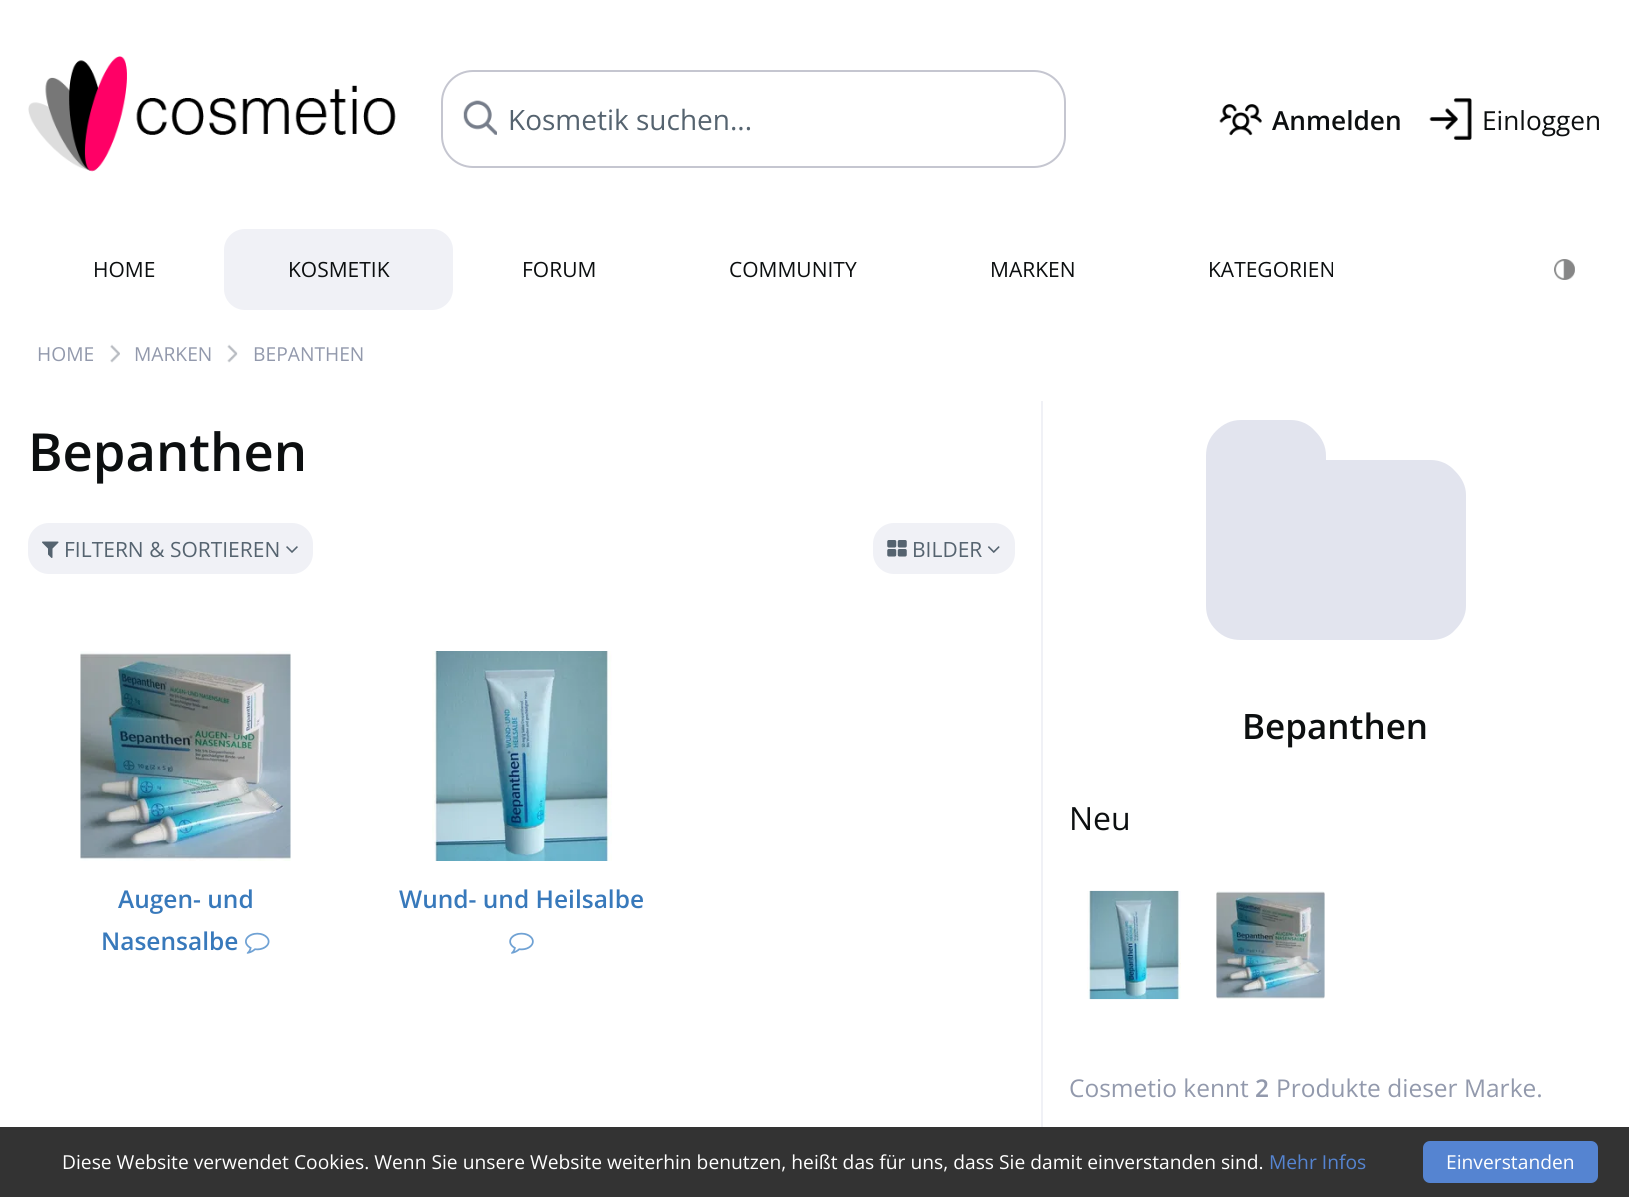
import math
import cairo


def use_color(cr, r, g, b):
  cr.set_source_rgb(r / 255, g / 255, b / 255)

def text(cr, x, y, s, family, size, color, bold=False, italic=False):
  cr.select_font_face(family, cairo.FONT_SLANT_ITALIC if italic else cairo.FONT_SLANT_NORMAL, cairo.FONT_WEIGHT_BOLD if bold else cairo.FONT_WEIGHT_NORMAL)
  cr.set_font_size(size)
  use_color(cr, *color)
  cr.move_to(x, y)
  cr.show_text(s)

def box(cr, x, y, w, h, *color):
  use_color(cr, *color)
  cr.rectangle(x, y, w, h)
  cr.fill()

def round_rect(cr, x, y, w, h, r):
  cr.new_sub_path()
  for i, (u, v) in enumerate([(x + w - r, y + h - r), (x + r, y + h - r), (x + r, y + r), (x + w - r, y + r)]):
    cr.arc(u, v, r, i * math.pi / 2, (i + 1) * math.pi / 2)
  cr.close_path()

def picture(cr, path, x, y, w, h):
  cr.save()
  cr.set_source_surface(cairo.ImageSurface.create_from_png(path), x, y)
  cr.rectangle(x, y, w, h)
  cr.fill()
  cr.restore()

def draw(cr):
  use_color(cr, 255, 255, 255)
  cr.paint()
  picture(cr, "img_01.png", 28, 56, 368, 116)
  picture(cr, "img_02.png", 463, 100, 34, 35)
  round_rect(cr, 442, 71, 623, 96, 31)
  use_color(cr, 197, 198, 208)
  cr.stroke()
  picture(cr, "img_03.png", 1219, 104, 43, 32)
  picture(cr, "img_04.png", 1429, 98, 43, 42)
  use_color(cr, 240, 241, 246)
  round_rect(cr, 224, 229, 229, 81, 21)
  cr.fill()
  picture(cr, "img_05.png", 1554, 259, 21, 21)
  picture(cr, "img_06.png", 110, 344, 10, 19)
  picture(cr, "img_07.png", 227, 344, 11, 19)
  round_rect(cr, 28, 523, 285, 51, 21)
  cr.fill()
  picture(cr, "img_08.png", 42, 541, 17, 17)
  picture(cr, "img_09.png", 286, 546, 12, 7)
  round_rect(cr, 873, 523, 142, 51, 21)
  cr.fill()
  picture(cr, "img_10.png", 887, 540, 20, 17)
  picture(cr, "img_11.png", 988, 546, 12, 7)
  picture(cr, "img_12.png", 80, 651, 211, 210)
  picture(cr, "img_13.png", 245, 932, 25, 22)
  picture(cr, "img_14.png", 432, 651, 180, 210)
  picture(cr, "img_15.png", 509, 932, 25, 22)
  box(cr, 1041, 401, 2, 726, 240, 241, 246)
  use_color(cr, 226, 228, 238)
  cr.new_path()
  cr.move_to(1466, 495)
  cr.line_to(1466, 606)
  cr.curve_to(1466, 615, 1462, 623, 1455, 630)
  cr.curve_to(1449, 637, 1440, 640, 1431, 640)
  cr.line_to(1241, 640)
  cr.curve_to(1231, 640, 1223, 637, 1216, 630)
  cr.curve_to(1209, 623, 1206, 615, 1206, 606)
  cr.line_to(1206, 456)
  cr.curve_to(1206, 446, 1209, 438, 1216, 431)
  cr.curve_to(1223, 424, 1231, 420, 1241, 420)
  cr.line_to(1291, 420)
  cr.curve_to(1300, 420, 1309, 424, 1315, 431)
  cr.curve_to(1322, 438, 1326, 446, 1326, 456)
  cr.line_to(1326, 460)
  cr.line_to(1431, 460)
  cr.curve_to(1440, 460, 1449, 464, 1455, 471)
  cr.curve_to(1462, 478, 1466, 486, 1466, 495)
  cr.close_path()
  cr.fill()
  picture(cr, "img_16.png", 1087, 890, 94, 110)
  picture(cr, "img_17.png", 1216, 891, 109, 108)
  box(cr, 0, 1127, 1629, 70, 51, 51, 51)
  use_color(cr, 85, 132, 209)
  round_rect(cr, 1423, 1141, 175, 42, 7)
  cr.fill()
  text(cr, 508, 130, "Kosmetik suchen...", "Open Sans", 28, (85, 99, 111))
  text(cr, 1272, 130, "Anmelden", "Open Sans SemiBold", 26.25, (12, 15, 16))
  text(cr, 1482, 130, "Einloggen", "Open Sans", 26.25, (12, 15, 16))
  text(cr, 93, 277, "HOME", "Open Sans", 21, (12, 15, 16))
  text(cr, 288, 277, "KOSMETIK", "Open Sans", 21, (12, 15, 16))
  text(cr, 522, 277, "FORUM", "Open Sans", 21, (12, 15, 16))
  text(cr, 729, 277, "COMMUNITY", "Open Sans", 21, (12, 15, 16))
  text(cr, 990, 277, "MARKEN", "Open Sans", 21, (12, 15, 16))
  text(cr, 1208, 277, "KATEGORIEN", "Open Sans", 21, (12, 15, 16))
  text(cr, 37, 361, "HOME", "Open Sans", 19.25, (146, 153, 172))
  text(cr, 134, 361, "MARKEN", "Open Sans", 19.25, (146, 153, 172))
  text(cr, 253, 361, "BEPANTHEN", "Open Sans", 19.25, (146, 153, 172))
  text(cr, 28, 471, "Bepanthen", "Open Sans SemiBold", 52.5, (12, 15, 16))
  text(cr, 64, 557, "FILTERN & SORTIEREN", "Open Sans", 21, (85, 99, 111))
  text(cr, 912, 557, "BILDER", "Open Sans", 21, (85, 99, 111))
  text(cr, 118, 908, "Augen- und", "Open Sans SemiBold", 24.5, (56, 121, 187))
  text(cr, 101, 950, "Nasensalbe", "Open Sans SemiBold", 24.5, (56, 121, 187))
  text(cr, 399, 908, "Wund- und Heilsalbe", "Open Sans SemiBold", 24.5, (56, 121, 187))
  text(cr, 1242, 739, "Bepanthen", "Open Sans SemiBold", 35, (12, 15, 16))
  text(cr, 1069, 830, "Neu", "Open Sans", 32, (12, 15, 16))
  text(cr, 1069, 1097, "Cosmetio kennt", "Open Sans", 24.5, (146, 153, 172))
  text(cr, 1255, 1097, "2", "Open Sans SemiBold", 24.5, (146, 153, 172))
  text(cr, 1276, 1097, "Produkte dieser Marke.", "Open Sans", 24.5, (146, 153, 172))
  text(cr, 62, 1169, "Diese Website verwendet Cookies. Wenn Sie unsere Website weiterhin benutzen, heißt das für uns, dass Sie damit einverstanden sind.", "Open Sans", 19.25, (255, 255, 255))
  text(cr, 1269, 1169, "Mehr Infos", "Open Sans", 19.25, (85, 132, 209))
  text(cr, 1446, 1169, "Einverstanden", "Open Sans", 19.25, (255, 255, 255))


surface = cairo.ImageSurface(cairo.FORMAT_RGB24, 1629, 1197)
cr = cairo.Context(surface)
options = cairo.FontOptions()
options.set_hint_metrics(cairo.HINT_METRICS_OFF)
options.set_hint_style(cairo.HINT_STYLE_NONE)
cr.set_font_options(options)
cr.set_miter_limit(4)
draw(cr)
surface.write_to_png("out.png")
